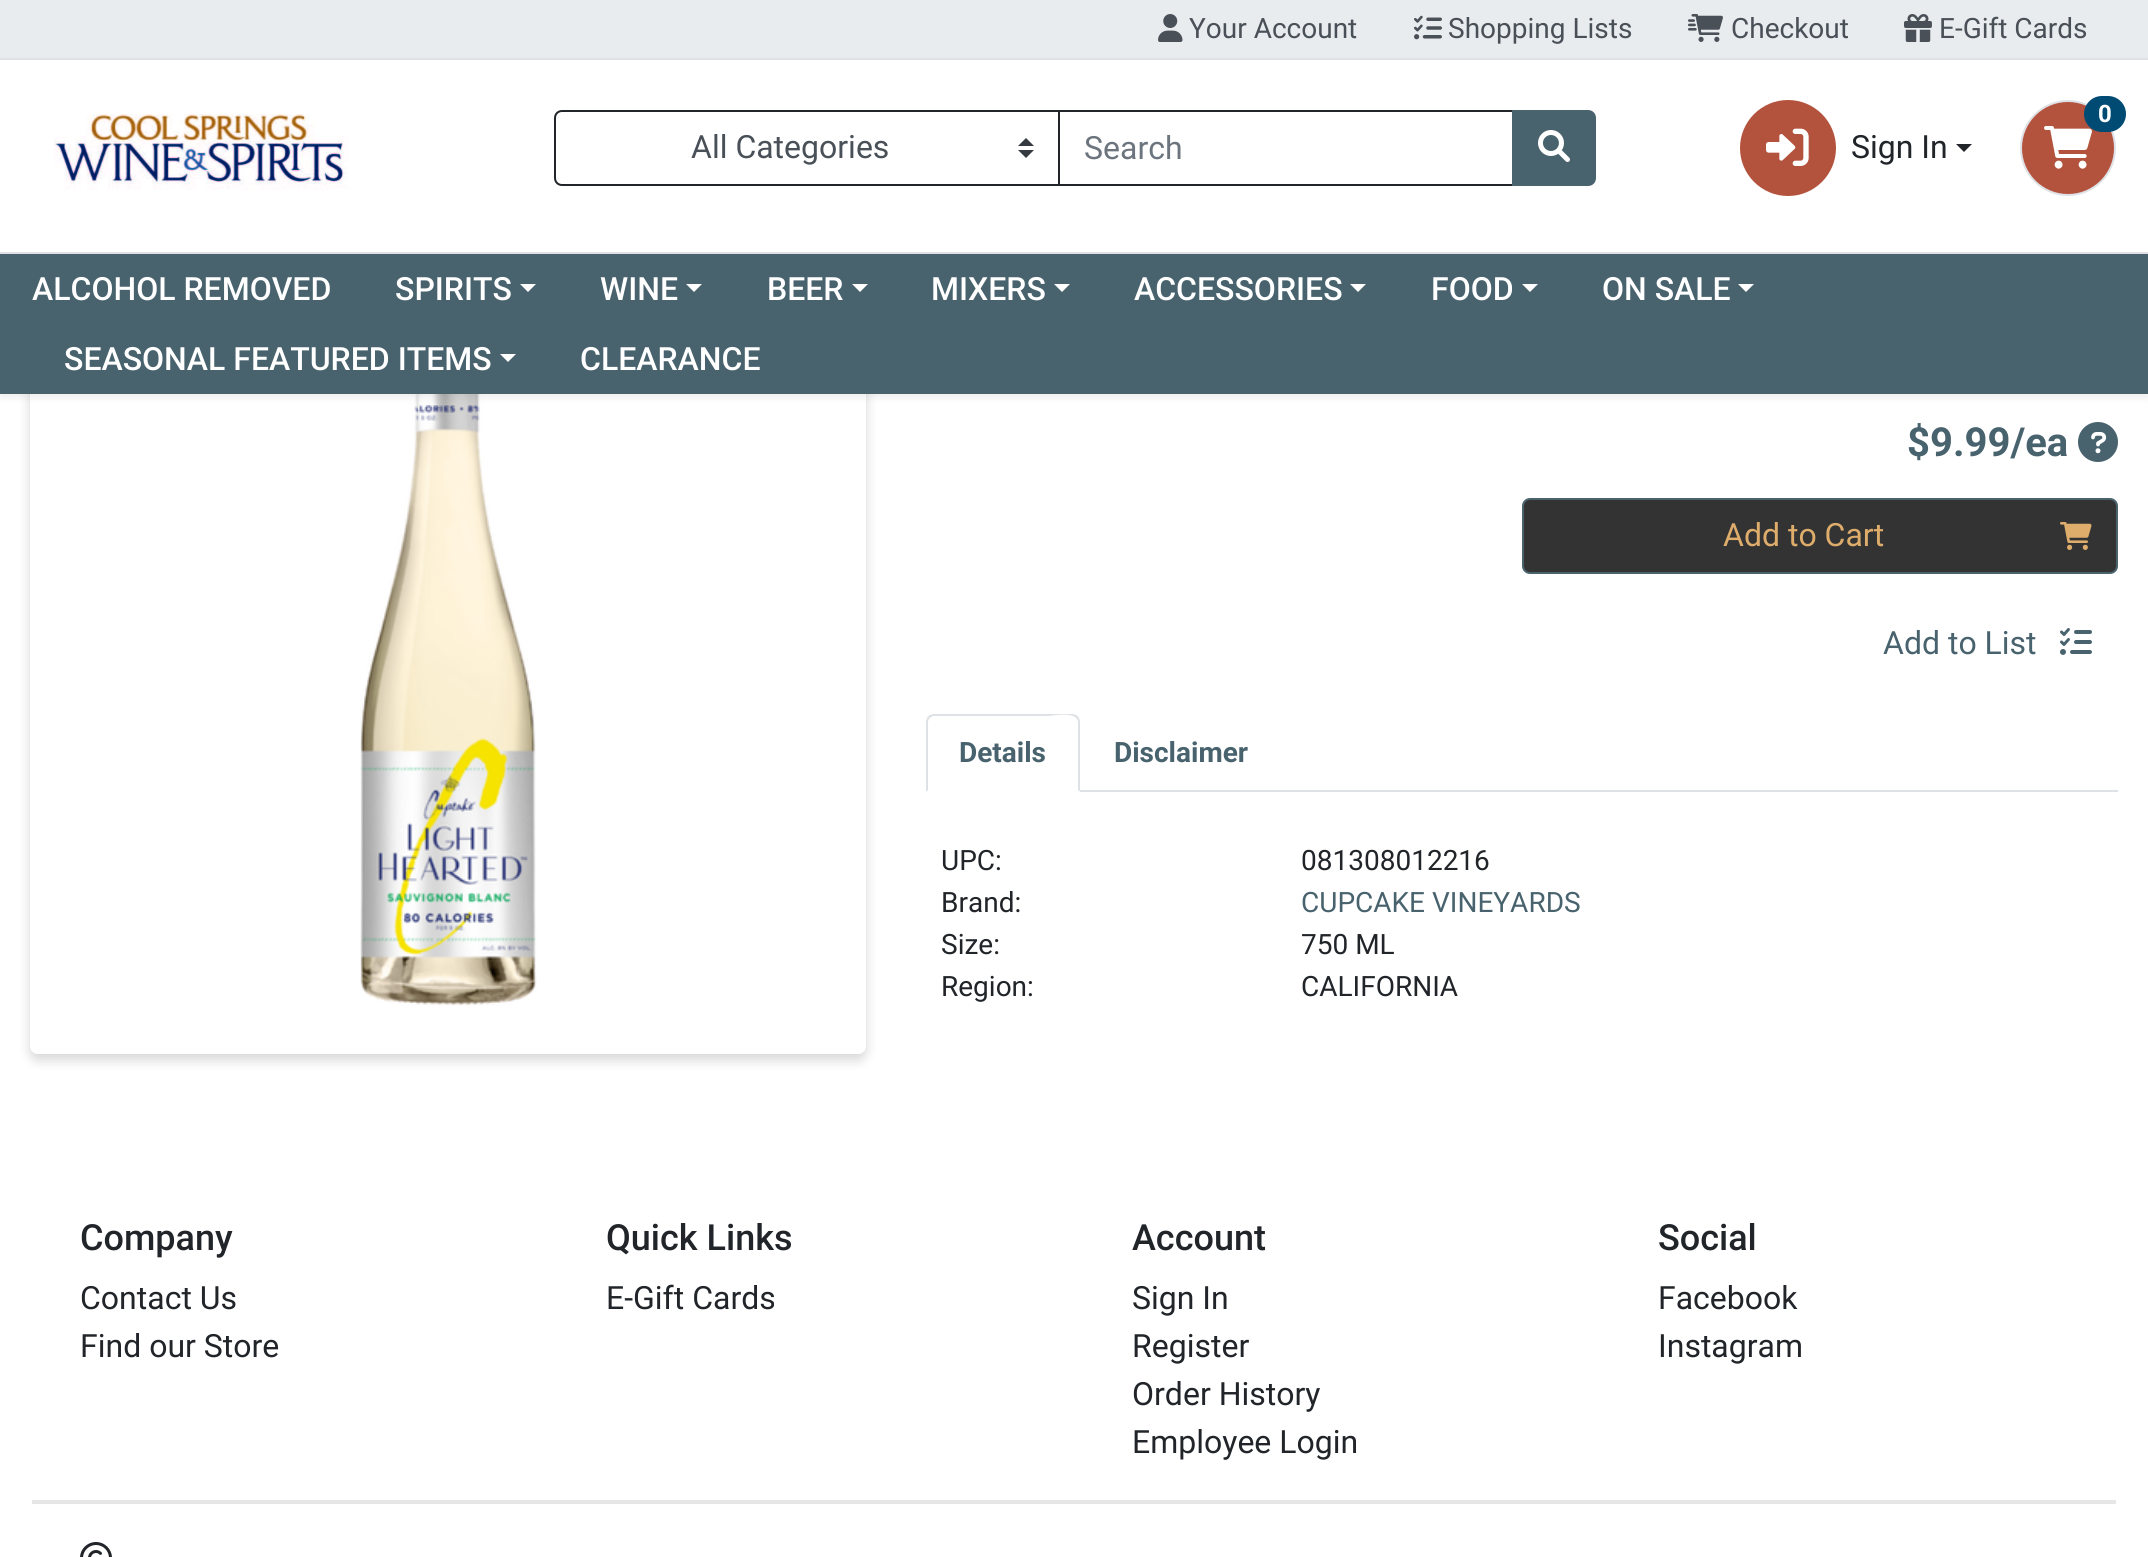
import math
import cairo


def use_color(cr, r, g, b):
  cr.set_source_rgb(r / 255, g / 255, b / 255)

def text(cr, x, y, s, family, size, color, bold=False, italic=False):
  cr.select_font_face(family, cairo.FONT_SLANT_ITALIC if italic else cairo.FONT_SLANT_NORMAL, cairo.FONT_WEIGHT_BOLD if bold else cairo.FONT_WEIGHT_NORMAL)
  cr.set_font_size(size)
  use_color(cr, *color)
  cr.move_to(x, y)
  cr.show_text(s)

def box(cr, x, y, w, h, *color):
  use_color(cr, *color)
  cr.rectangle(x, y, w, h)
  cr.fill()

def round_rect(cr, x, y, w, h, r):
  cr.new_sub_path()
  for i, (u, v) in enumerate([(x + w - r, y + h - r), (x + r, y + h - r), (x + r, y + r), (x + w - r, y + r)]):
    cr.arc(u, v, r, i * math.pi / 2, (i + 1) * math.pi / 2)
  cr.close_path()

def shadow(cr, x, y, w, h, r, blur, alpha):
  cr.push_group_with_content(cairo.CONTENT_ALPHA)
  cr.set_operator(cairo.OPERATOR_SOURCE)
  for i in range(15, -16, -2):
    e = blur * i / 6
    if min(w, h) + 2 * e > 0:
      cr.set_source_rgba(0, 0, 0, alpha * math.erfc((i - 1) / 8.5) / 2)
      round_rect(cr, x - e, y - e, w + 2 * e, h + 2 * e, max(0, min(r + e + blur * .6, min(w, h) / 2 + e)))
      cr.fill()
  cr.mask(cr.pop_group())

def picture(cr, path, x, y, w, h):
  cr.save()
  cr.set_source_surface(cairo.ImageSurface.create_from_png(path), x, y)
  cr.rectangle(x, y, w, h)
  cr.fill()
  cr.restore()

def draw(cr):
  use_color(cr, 255, 255, 255)
  cr.paint()
  use_color(cr, 0, 0, 0)
  shadow(cr, 30, 260, 836, 800, 8, 6, 0.16)
  use_color(cr, 255, 255, 255)
  round_rect(cr, 30, 254, 836, 800, 8)
  cr.fill()
  picture(cr, "img_09.png", 360, 394, 177, 612)
  use_color(cr, 0, 0, 0)
  shadow(cr, 0, 4, 2148, 394, 0, 4, 0.07)
  box(cr, 0, 60, 2148, 192, 255, 255, 255)
  box(cr, 0, 0, 2148, 58, 233, 236, 239)
  box(cr, 0, 58, 2148, 2, 222, 226, 230)
  picture(cr, "img_01.png", 1158, 14, 25, 28)
  picture(cr, "img_02.png", 1414, 15, 28, 25)
  picture(cr, "img_03.png", 1688, 14, 35, 28)
  picture(cr, "img_04.png", 1904, 14, 28, 28)
  box(cr, 0, 252, 2148, 2, 222, 226, 230)
  picture(cr, "img_05.png", 54, 114, 294, 76)
  cr.rectangle(1059, 111, 454, 74)
  use_color(cr, 33, 37, 41)
  cr.stroke()
  use_color(cr, 255, 255, 255)
  cr.new_path()
  cr.move_to(562, 110)
  cr.line_to(1060, 110)
  cr.line_to(1060, 186)
  cr.line_to(562, 186)
  cr.curve_to(557.5, 186, 554, 182.5, 554, 178)
  cr.line_to(554, 118)
  cr.curve_to(554, 113.5, 557.5, 110, 562, 110)
  cr.close_path()
  cr.fill()
  use_color(cr, 52, 58, 64)
  cr.new_path()
  cr.move_to(1026, 138)
  cr.line_to(1018, 146)
  cr.line_to(1034, 146)
  cr.close_path()
  cr.move_to(1026, 158)
  cr.line_to(1018, 150)
  cr.line_to(1034, 150)
  cr.close_path()
  cr.fill()
  cr.new_path()
  cr.move_to(562, 111)
  cr.line_to(1059, 111)
  cr.line_to(1059, 185)
  cr.line_to(562, 185)
  cr.curve_to(558, 185, 555, 182, 555, 178)
  cr.line_to(555, 118)
  cr.curve_to(555, 114, 558, 111, 562, 111)
  cr.close_path()
  use_color(cr, 33, 37, 41)
  cr.stroke()
  use_color(cr, 72, 99, 110)
  cr.new_path()
  cr.move_to(1513, 111)
  cr.line_to(1588, 111)
  cr.curve_to(1592, 111, 1595, 114, 1595, 118)
  cr.line_to(1595, 178)
  cr.curve_to(1595, 182, 1592, 185, 1588, 185)
  cr.line_to(1513, 185)
  cr.close_path()
  cr.fill_preserve()
  cr.stroke()
  picture(cr, "img_06.png", 1538, 130, 32, 32)
  use_color(cr, 179, 83, 61)
  cr.arc(2068, 148, 47, 0, 2 * math.pi)
  cr.fill_preserve()
  use_color(cr, 222, 226, 230)
  cr.stroke()
  picture(cr, "img_07.png", 2044, 126, 48, 43)
  use_color(cr, 0, 75, 115)
  round_rect(cr, 2084, 96, 42, 36, 18)
  cr.fill()
  use_color(cr, 179, 83, 61)
  cr.arc(1788, 148, 48, 0, 2 * math.pi)
  cr.fill()
  picture(cr, "img_08.png", 1766, 128, 43, 38)
  use_color(cr, 33, 37, 41)
  cr.new_path()
  cr.move_to(1956, 144)
  cr.line_to(1972, 144)
  cr.line_to(1964, 152)
  cr.close_path()
  cr.fill()
  box(cr, 0, 254, 2148, 140, 72, 99, 110)
  use_color(cr, 255, 255, 255)
  cr.new_path()
  cr.move_to(520, 284)
  cr.line_to(536, 284)
  cr.line_to(528, 292)
  cr.close_path()
  cr.fill()
  cr.new_path()
  cr.move_to(686, 284)
  cr.line_to(702, 284)
  cr.line_to(694, 292)
  cr.close_path()
  cr.fill()
  cr.new_path()
  cr.move_to(852, 284)
  cr.line_to(868, 284)
  cr.line_to(860, 292)
  cr.close_path()
  cr.fill()
  cr.new_path()
  cr.move_to(1054, 284)
  cr.line_to(1070, 284)
  cr.line_to(1062, 292)
  cr.close_path()
  cr.fill()
  cr.new_path()
  cr.move_to(1350, 284)
  cr.line_to(1366, 284)
  cr.line_to(1358, 292)
  cr.close_path()
  cr.fill()
  cr.new_path()
  cr.move_to(1522, 284)
  cr.line_to(1538, 284)
  cr.line_to(1530, 292)
  cr.close_path()
  cr.fill()
  cr.new_path()
  cr.move_to(1738, 284)
  cr.line_to(1754, 284)
  cr.line_to(1746, 292)
  cr.close_path()
  cr.fill()
  cr.new_path()
  cr.move_to(500, 354)
  cr.line_to(516, 354)
  cr.line_to(508, 362)
  cr.close_path()
  cr.fill()
  picture(cr, "img_10.png", 2078, 422, 40, 40)
  use_color(cr, 51, 51, 51)
  round_rect(cr, 1523, 499, 594, 74, 7)
  cr.fill_preserve()
  use_color(cr, 72, 99, 110)
  cr.stroke()
  picture(cr, "img_11.png", 2060, 522, 32, 28)
  picture(cr, "img_12.png", 2060, 628, 32, 27)
  box(cr, 1080, 790, 1038, 2, 222, 226, 230)
  cr.new_path()
  cr.move_to(934, 714)
  cr.curve_to(932, 714, 930, 715, 928, 716)
  cr.line_to(930, 718)
  cr.line_to(933, 716)
  cr.line_to(1049, 716)
  cr.curve_to(1049, 716, 1071, 712, 1076, 718)
  cr.line_to(1078, 716)
  cr.curve_to(1076, 715, 1074, 714, 1072, 714)
  cr.close_path()
  cr.fill()
  cr.new_path()
  cr.move_to(1080, 792)
  cr.line_to(1080, 722)
  cr.curve_to(1080, 720, 1079, 718, 1078, 716)
  cr.line_to(1076, 718)
  cr.curve_to(1077, 719, 1078, 720, 1078, 722)
  cr.line_to(1078, 790)
  cr.close_path()
  cr.fill()
  use_color(cr, 255, 255, 255)
  cr.new_path()
  cr.move_to(1080, 792)
  cr.line_to(1078, 790)
  cr.line_to(928, 790)
  cr.line_to(926, 792)
  cr.close_path()
  cr.fill()
  use_color(cr, 222, 226, 230)
  cr.new_path()
  cr.move_to(926, 792)
  cr.line_to(928, 790)
  cr.line_to(928, 722)
  cr.curve_to(928, 720, 929, 719, 930, 718)
  cr.line_to(928, 716)
  cr.curve_to(927, 718, 926, 720, 926, 722)
  cr.close_path()
  cr.fill()
  box(cr, 32, 1500, 2084, 4, 230, 230, 230)
  picture(cr, "img_13.png", 80, 1542, 32, 15)
  text(cr, 1189, 38, "Your Account", "Roboto", 28, (73, 80, 87))
  text(cr, 1448, 38, "Shopping Lists", "Roboto", 28, (73, 80, 87))
  text(cr, 1731, 38, "Checkout", "Roboto", 28, (73, 80, 87))
  text(cr, 1939, 38, "E-Gift Cards", "Roboto", 28, (73, 80, 87))
  text(cr, 691, 158, "All Categories", "Roboto", 32, (73, 80, 87))
  text(cr, 1084, 159, "Search", "Roboto", 32, (108, 117, 125))
  text(cr, 2098, 122, "0", "Roboto", 24, (255, 255, 255), bold=True)
  text(cr, 1851, 158, "Sign In", "Roboto", 32, (33, 37, 41))
  text(cr, 32, 300, "ALCOHOL REMOVED", "Roboto Medium", 32, (255, 255, 255))
  text(cr, 395, 300, "SPIRITS", "Roboto Medium", 32, (255, 255, 255))
  text(cr, 600, 300, "WINE", "Roboto Medium", 32, (255, 255, 255))
  text(cr, 767, 300, "BEER", "Roboto Medium", 32, (255, 255, 255))
  text(cr, 931, 300, "MIXERS", "Roboto Medium", 32, (255, 255, 255))
  text(cr, 1134, 300, "ACCESSORIES", "Roboto Medium", 32, (255, 255, 255))
  text(cr, 1431, 300, "FOOD", "Roboto Medium", 32, (255, 255, 255))
  text(cr, 1602, 300, "ON SALE", "Roboto Medium", 32, (255, 255, 255))
  text(cr, 64, 370, "SEASONAL FEATURED ITEMS", "Roboto Medium", 32, (255, 255, 255))
  text(cr, 580, 370, "CLEARANCE", "Roboto Medium", 32, (255, 255, 255))
  text(cr, 1907, 456, "$9.99/ea", "Roboto", 40, (72, 99, 110), bold=True)
  text(cr, 1723, 546, "Add to Cart", "Roboto", 32, (222, 173, 108))
  text(cr, 1883, 654, "Add to List", "Roboto", 32, (72, 99, 110))
  text(cr, 959, 762, "Details", "Roboto", 28, (72, 99, 110), bold=True)
  text(cr, 1114, 762, "Disclaimer", "Roboto", 28, (72, 99, 110), bold=True)
  text(cr, 941, 870, "UPC:", "Roboto", 28, (33, 37, 41))
  text(cr, 1301, 870, "081308012216", "Roboto", 28, (33, 37, 41))
  text(cr, 941, 912, "Brand:", "Roboto", 28, (33, 37, 41))
  text(cr, 1301, 912, "CUPCAKE VINEYARDS", "Roboto", 28, (72, 99, 110))
  text(cr, 941, 954, "Size:", "Roboto", 28, (33, 37, 41))
  text(cr, 1301, 954, "750 ML", "Roboto", 28, (33, 37, 41))
  text(cr, 941, 996, "Region:", "Roboto", 28, (33, 37, 41))
  text(cr, 1301, 996, "CALIFORNIA", "Roboto", 28, (33, 37, 41))
  text(cr, 80, 1250, "Company", "Roboto Medium", 36, (33, 37, 41))
  text(cr, 80, 1309, "Contact Us", "Roboto", 32, (33, 37, 41))
  text(cr, 80, 1357, "Find our Store", "Roboto", 32, (33, 37, 41))
  text(cr, 606, 1250, "Quick Links", "Roboto Medium", 36, (33, 37, 41))
  text(cr, 606, 1309, "E-Gift Cards", "Roboto", 32, (33, 37, 41))
  text(cr, 1132, 1250, "Account", "Roboto Medium", 36, (33, 37, 41))
  text(cr, 1132, 1309, "Sign In", "Roboto", 32, (33, 37, 41))
  text(cr, 1132, 1357, "Register", "Roboto", 32, (33, 37, 41))
  text(cr, 1132, 1405, "Order History", "Roboto", 32, (33, 37, 41))
  text(cr, 1132, 1453, "Employee Login", "Roboto", 32, (33, 37, 41))
  text(cr, 1658, 1250, "Social", "Roboto Medium", 36, (33, 37, 41))
  text(cr, 1658, 1309, "Facebook", "Roboto", 32, (33, 37, 41))
  text(cr, 1658, 1357, "Instagram", "Roboto", 32, (33, 37, 41))


surface = cairo.ImageSurface(cairo.FORMAT_RGB24, 2148, 1557)
cr = cairo.Context(surface)
options = cairo.FontOptions()
options.set_hint_metrics(cairo.HINT_METRICS_OFF)
options.set_hint_style(cairo.HINT_STYLE_NONE)
cr.set_font_options(options)
cr.set_miter_limit(4)
draw(cr)
surface.write_to_png("out.png")
